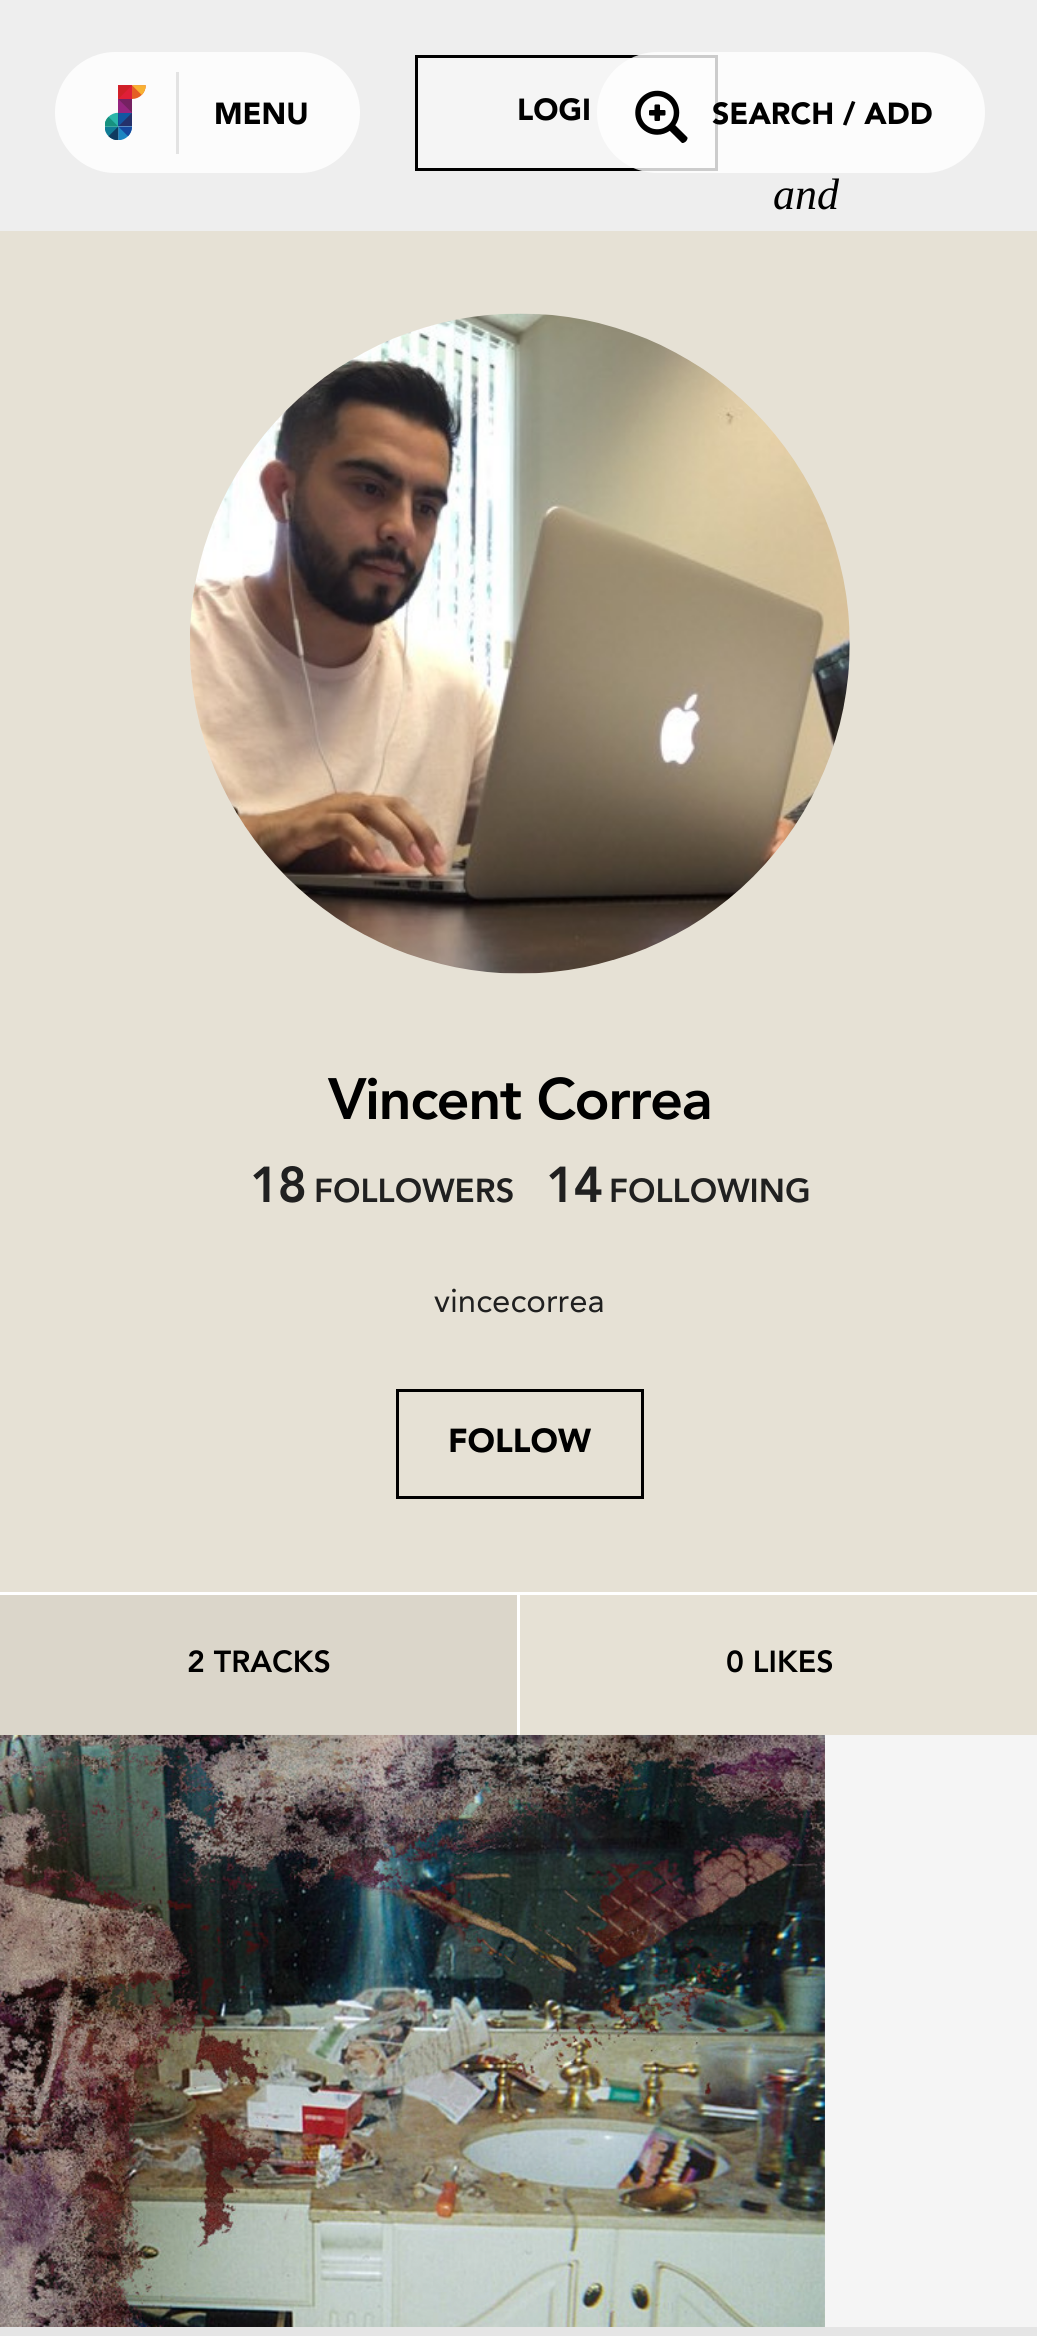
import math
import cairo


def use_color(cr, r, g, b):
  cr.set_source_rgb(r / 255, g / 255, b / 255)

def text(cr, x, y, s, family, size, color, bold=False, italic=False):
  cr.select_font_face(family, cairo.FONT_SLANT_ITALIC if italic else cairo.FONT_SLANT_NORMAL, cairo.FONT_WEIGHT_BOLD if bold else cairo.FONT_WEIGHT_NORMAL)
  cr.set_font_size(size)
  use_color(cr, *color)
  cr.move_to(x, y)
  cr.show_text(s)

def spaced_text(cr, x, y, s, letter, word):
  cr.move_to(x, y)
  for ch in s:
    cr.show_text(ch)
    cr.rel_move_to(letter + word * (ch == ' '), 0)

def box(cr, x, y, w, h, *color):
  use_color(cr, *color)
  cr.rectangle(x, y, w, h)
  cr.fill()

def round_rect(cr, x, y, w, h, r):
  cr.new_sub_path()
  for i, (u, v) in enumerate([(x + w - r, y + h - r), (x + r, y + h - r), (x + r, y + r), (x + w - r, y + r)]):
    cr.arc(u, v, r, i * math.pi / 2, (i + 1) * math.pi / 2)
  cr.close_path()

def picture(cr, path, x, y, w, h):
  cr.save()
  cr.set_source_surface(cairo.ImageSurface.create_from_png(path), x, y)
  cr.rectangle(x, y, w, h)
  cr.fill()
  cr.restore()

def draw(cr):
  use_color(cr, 245, 245, 245)
  cr.paint()
  box(cr, 0, 0, 1037, 231, 238, 238, 238)
  use_color(cr, 245, 245, 245)
  cr.rectangle(416.5, 56.5, 300, 113)
  cr.fill_preserve()
  use_color(cr, 0, 0, 0)
  cr.set_line_width(3)
  cr.stroke()
  use_color(cr, 252, 252, 252)
  round_rect(cr, 55, 52, 305, 121, 60.5)
  cr.fill()
  picture(cr, "img_01.png", 105, 85, 41, 55)
  box(cr, 176, 72, 3, 82, 227, 227, 227)
  cr.set_source_rgba(1, 1, 1, 0.8)
  round_rect(cr, 597, 52, 388, 121, 60.5)
  cr.fill()
  picture(cr, "img_02.png", 635, 90, 53, 53)
  box(cr, 0, 231, 1037, 1361, 230, 225, 213)
  picture(cr, "img_03.png", 190, 313, 660, 661)
  cr.rectangle(397.5, 1390.5, 245, 107)
  use_color(cr, 0, 0, 0)
  cr.stroke()
  box(cr, 520, 1595, 517, 140, 230, 225, 213)
  box(cr, 0, 1595, 517, 140, 219, 214, 202)
  box(cr, 0, 1592, 1037, 3, 255, 255, 255)
  box(cr, 517, 1592, 3, 143, 255, 255, 255)
  picture(cr, "img_04.png", 0, 1735, 825, 592)
  box(cr, 0, 2327, 1037, 9, 229, 229, 229)
  text(cr, 517, 120, "LOGI", "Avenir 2 Black", 30.25, (0, 0, 0))
  text(cr, 773, 209, "and", "Liberation Serif", 44, (0, 0, 0), italic=True)
  text(cr, 214, 124, "MENU", "Avenir 2 Black", 30.25, (0, 0, 0))
  text(cr, 712, 124, "SEARCH / ADD", "Avenir 2 Black", 30.25, (0, 0, 0))
  cr.select_font_face("Avenir Black")
  cr.set_font_size(57.75)
  spaced_text(cr, 328, 1119, "Vincent Correa", -1.5, 0)
  cr.set_font_size(50)
  use_color(cr, 32, 32, 32)
  spaced_text(cr, 250, 1202, "18", -2, 0)
  text(cr, 314, 1202, "FOLLOWERS", "Avenir Black", 33, (32, 32, 32))
  cr.set_font_size(50)
  spaced_text(cr, 546, 1202, "14", -2, 0)
  text(cr, 609, 1202, "FOLLOWING", "Avenir Black", 33, (32, 32, 32))
  text(cr, 434, 1312, "vincecorrea", "Avenir", 33, (32, 32, 32))
  text(cr, 448, 1452, "FOLLOW", "Avenir 2 Black", 33, (0, 0, 0))
  text(cr, 187, 1672, "2 TRACKS", "Avenir Black", 30.25, (0, 0, 0))
  text(cr, 726, 1672, "0 LIKES", "Avenir Black", 30.25, (0, 0, 0))


surface = cairo.ImageSurface(cairo.FORMAT_RGB24, 1037, 2336)
cr = cairo.Context(surface)
options = cairo.FontOptions()
options.set_hint_metrics(cairo.HINT_METRICS_OFF)
options.set_hint_style(cairo.HINT_STYLE_NONE)
cr.set_font_options(options)
cr.set_miter_limit(4)
draw(cr)
surface.write_to_png("out.png")
